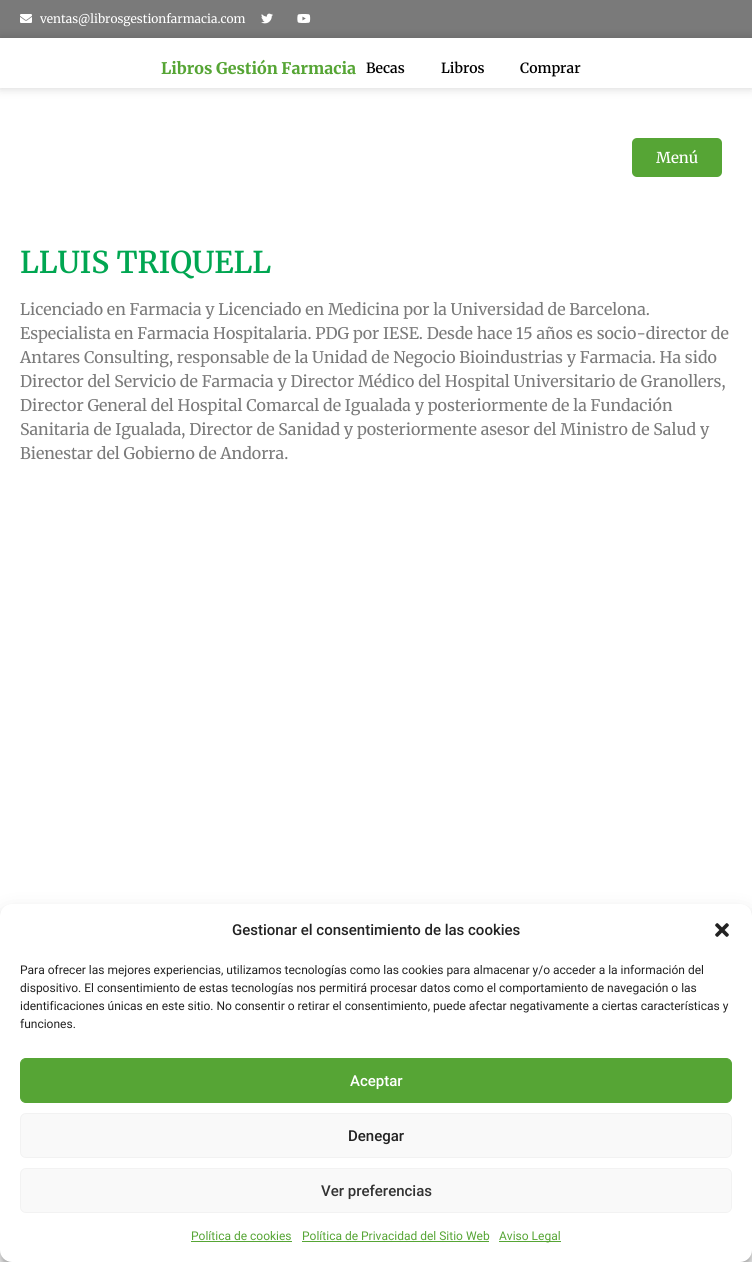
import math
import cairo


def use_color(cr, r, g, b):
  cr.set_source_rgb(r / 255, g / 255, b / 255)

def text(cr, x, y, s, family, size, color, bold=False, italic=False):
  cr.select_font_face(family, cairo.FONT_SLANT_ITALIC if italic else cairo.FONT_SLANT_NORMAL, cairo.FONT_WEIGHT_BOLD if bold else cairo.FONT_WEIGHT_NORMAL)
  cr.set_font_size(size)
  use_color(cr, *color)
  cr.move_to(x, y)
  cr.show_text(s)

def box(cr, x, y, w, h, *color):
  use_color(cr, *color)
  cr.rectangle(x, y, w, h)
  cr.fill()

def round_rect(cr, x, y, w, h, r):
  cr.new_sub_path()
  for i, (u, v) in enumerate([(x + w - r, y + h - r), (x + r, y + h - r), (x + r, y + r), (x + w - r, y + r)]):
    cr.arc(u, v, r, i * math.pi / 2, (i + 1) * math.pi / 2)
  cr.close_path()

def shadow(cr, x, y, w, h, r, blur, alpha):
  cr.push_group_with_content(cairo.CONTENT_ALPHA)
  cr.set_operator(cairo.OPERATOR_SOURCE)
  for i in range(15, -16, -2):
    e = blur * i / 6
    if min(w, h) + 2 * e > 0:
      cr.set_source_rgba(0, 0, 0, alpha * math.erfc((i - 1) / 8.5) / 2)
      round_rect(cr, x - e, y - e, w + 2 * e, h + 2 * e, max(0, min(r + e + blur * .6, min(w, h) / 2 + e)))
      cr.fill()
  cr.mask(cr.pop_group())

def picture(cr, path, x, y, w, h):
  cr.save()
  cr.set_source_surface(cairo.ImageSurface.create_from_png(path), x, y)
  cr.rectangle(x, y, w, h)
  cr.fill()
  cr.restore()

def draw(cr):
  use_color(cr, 255, 255, 255)
  cr.paint()
  box(cr, 0, 0, 752, 38, 122, 122, 122)
  picture(cr, "img_01.png", 20, 14, 12, 9)
  picture(cr, "img_02.png", 261, 13, 12, 11)
  picture(cr, "img_03.png", 297, 14, 14, 9)
  cr.save()
  cr.set_fill_rule(cairo.FILL_RULE_EVEN_ODD)
  cr.new_path()
  cr.move_to(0, 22)
  cr.line_to(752, 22)
  cr.line_to(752, 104)
  cr.line_to(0, 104)
  cr.close_path()
  cr.move_to(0, 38)
  cr.line_to(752, 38)
  cr.line_to(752, 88)
  cr.line_to(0, 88)
  cr.close_path()
  cr.clip()
  use_color(cr, 0, 0, 0)
  shadow(cr, 0, 38, 752, 50, 0, 5, 0.18)
  cr.restore()
  use_color(cr, 86, 165, 53)
  round_rect(cr, 632, 138, 90, 39, 5)
  cr.fill()
  use_color(cr, 0, 0, 0)
  shadow(cr, 0, 910, 752, 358, 12, 3, 0.23)
  shadow(cr, 0, 914, 752, 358, 12, 10, 0.19)
  use_color(cr, 255, 255, 255)
  round_rect(cr, 0, 904, 752, 358, 12)
  cr.fill()
  picture(cr, "img_04.png", 715, 923, 14, 14)
  use_color(cr, 86, 165, 53)
  round_rect(cr, 20.5, 1058.5, 711, 44, 5.5)
  cr.fill_preserve()
  cr.set_line_width(1)
  cr.stroke()
  use_color(cr, 249, 249, 249)
  round_rect(cr, 20.5, 1113.5, 711, 44, 5.5)
  cr.fill_preserve()
  use_color(cr, 242, 242, 242)
  cr.stroke()
  use_color(cr, 249, 249, 249)
  round_rect(cr, 20.5, 1168.5, 711, 44, 5.5)
  cr.fill_preserve()
  use_color(cr, 242, 242, 242)
  cr.stroke()
  box(cr, 191, 1241, 101, 1, 86, 165, 53)
  box(cr, 302, 1241, 187, 1, 86, 165, 53)
  box(cr, 499, 1241, 62, 1, 86, 165, 53)
  text(cr, 40, 23, "ventas@librosgestionfarmacia.com", "Merriweather", 12, (255, 255, 255))
  text(cr, 161, 74, "Libros Gestión Farmacia", "Merriweather ExtraBold", 16, (86, 165, 53))
  text(cr, 366, 73, "Becas", "Merriweather SemiBold", 14, (0, 0, 0))
  text(cr, 441, 73, "Libros", "Merriweather SemiBold", 14, (0, 0, 0))
  text(cr, 520, 73, "Comprar", "Merriweather SemiBold", 14, (0, 0, 0))
  text(cr, 656, 163, "Menú", "Merriweather Medium", 15, (255, 255, 255))
  text(cr, 20, 273, "LLUIS TRIQUELL", "Merriweather SemiBold", 30, (0, 166, 81))
  text(cr, 20, 315, "Licenciado en Farmacia y Licenciado en Medicina por la Universidad de Barcelona.", "Merriweather", 16, (122, 122, 122))
  text(cr, 20, 339, "Especialista en Farmacia Hospitalaria. PDG por IESE. Desde hace 15 años es socio-director de", "Merriweather", 16, (122, 122, 122))
  text(cr, 20, 363, "Antares Consulting, responsable de la Unidad de Negocio Bioindustrias y Farmacia. Ha sido", "Merriweather", 16, (122, 122, 122))
  text(cr, 20, 387, "Director del Servicio de Farmacia y Director Médico del Hospital Universitario de Granollers,", "Merriweather", 16, (122, 122, 122))
  text(cr, 20, 411, "Director General del Hospital Comarcal de Igualada y posteriormente de la Fundación", "Merriweather", 16, (122, 122, 122))
  text(cr, 20, 435, "Sanitaria de Igualada, Director de Sanidad y posteriormente asesor del Ministro de Salud y", "Merriweather", 16, (122, 122, 122))
  text(cr, 20, 459, "Bienestar del Gobierno de Andorra.", "Merriweather", 16, (122, 122, 122))
  text(cr, 232, 935, "Gestionar el consentimiento de las cookies", "Roboto Medium", 15, (34, 34, 34))
  text(cr, 20, 974, "Para ofrecer las mejores experiencias, utilizamos tecnologías como las cookies para almacenar y/o acceder a la información del", "Roboto", 12, (34, 34, 34))
  text(cr, 20, 992, "dispositivo. El consentimiento de estas tecnologías nos permitirá procesar datos como el comportamiento de navegación o las", "Roboto", 12, (34, 34, 34))
  text(cr, 20, 1010, "identificaciones únicas en este sitio. No consentir o retirar el consentimiento, puede afectar negativamente a ciertas características y", "Roboto", 12, (34, 34, 34))
  text(cr, 20, 1028, "funciones.", "Roboto", 12, (34, 34, 34))
  text(cr, 350, 1086, "Aceptar", "Roboto Medium", 15, (255, 255, 255))
  text(cr, 348, 1141, "Denegar", "Roboto Medium", 15, (34, 34, 34))
  text(cr, 321, 1196, "Ver preferencias", "Roboto Medium", 15, (51, 51, 51))
  text(cr, 191, 1240, "Política de cookies", "Roboto", 12, (86, 165, 53))
  text(cr, 302, 1240, "Política de Privacidad del Sitio Web", "Roboto", 12, (86, 165, 53))
  text(cr, 499, 1240, "Aviso Legal", "Roboto", 12, (86, 165, 53))


surface = cairo.ImageSurface(cairo.FORMAT_RGB24, 752, 1262)
cr = cairo.Context(surface)
options = cairo.FontOptions()
options.set_hint_metrics(cairo.HINT_METRICS_OFF)
options.set_hint_style(cairo.HINT_STYLE_NONE)
cr.set_font_options(options)
cr.set_miter_limit(4)
draw(cr)
surface.write_to_png("out.png")
